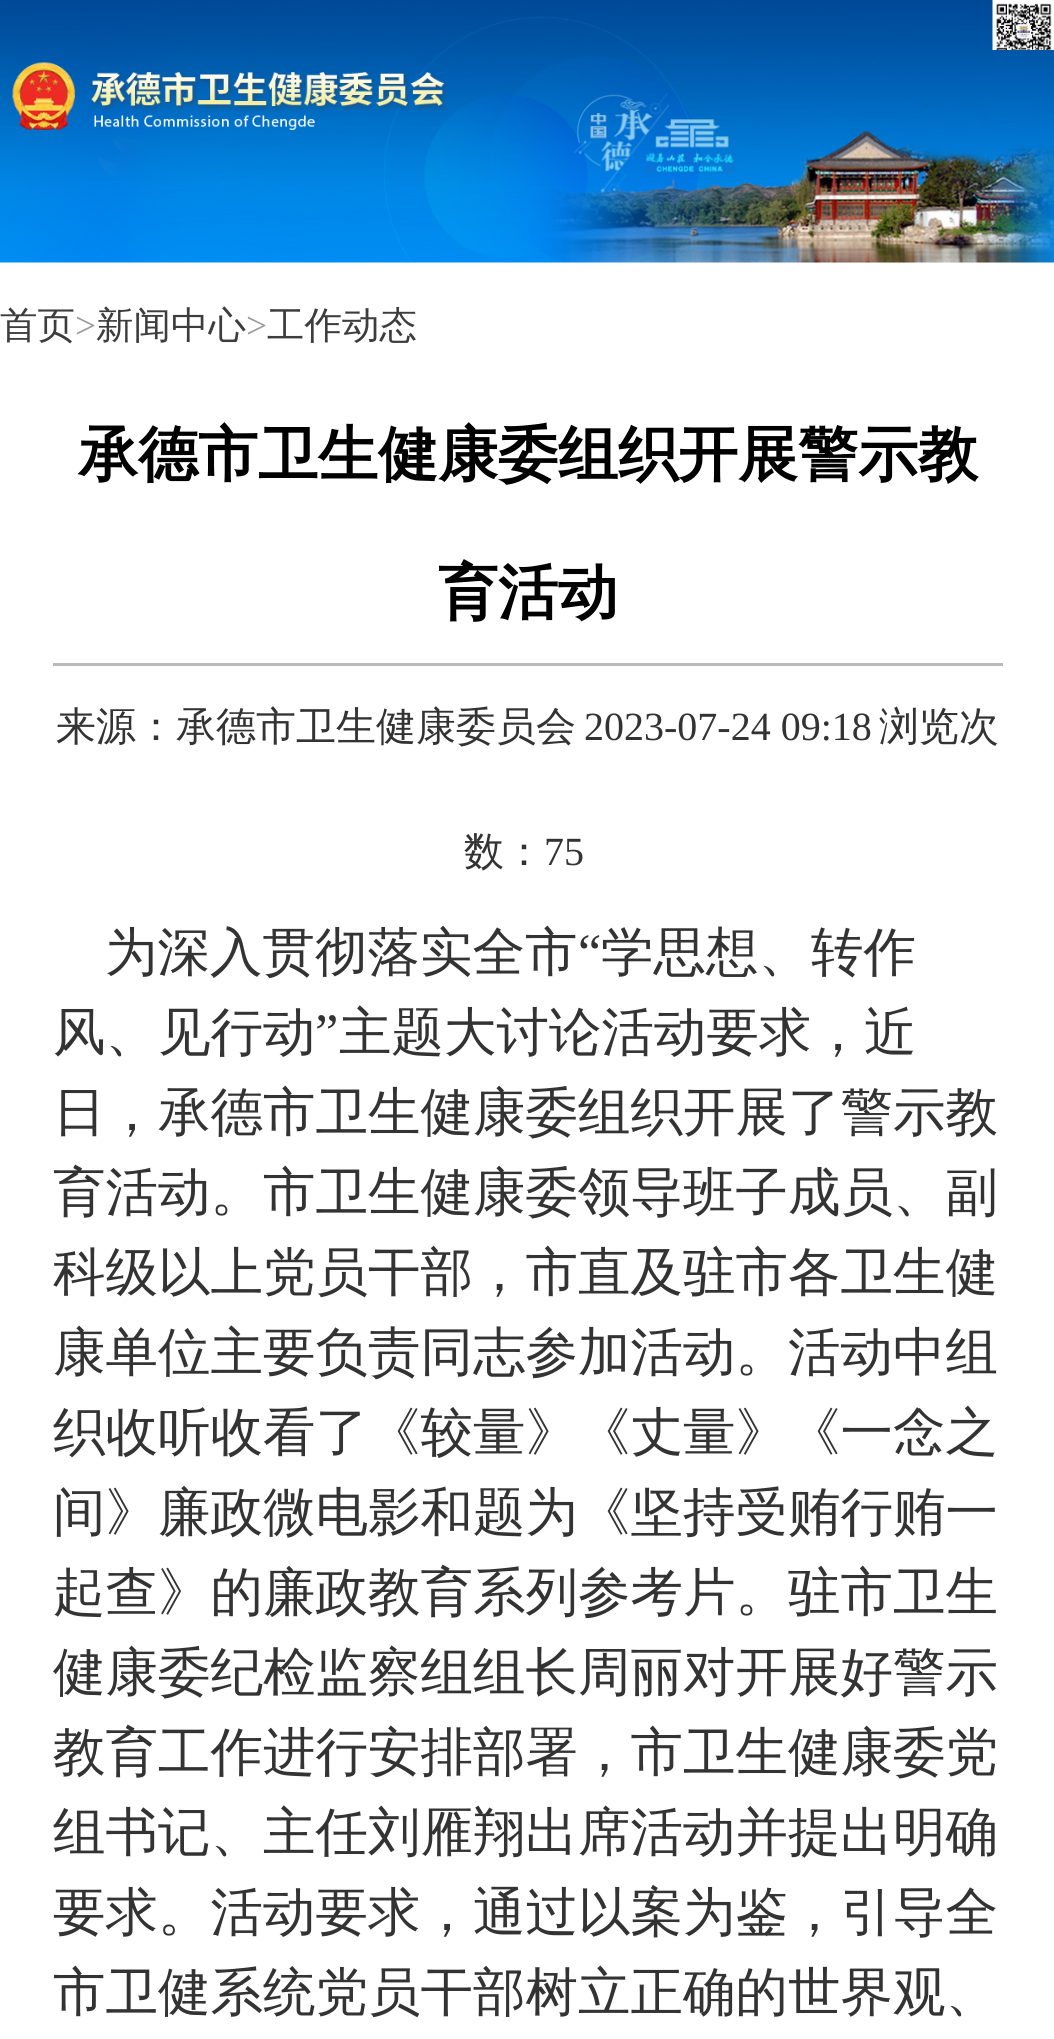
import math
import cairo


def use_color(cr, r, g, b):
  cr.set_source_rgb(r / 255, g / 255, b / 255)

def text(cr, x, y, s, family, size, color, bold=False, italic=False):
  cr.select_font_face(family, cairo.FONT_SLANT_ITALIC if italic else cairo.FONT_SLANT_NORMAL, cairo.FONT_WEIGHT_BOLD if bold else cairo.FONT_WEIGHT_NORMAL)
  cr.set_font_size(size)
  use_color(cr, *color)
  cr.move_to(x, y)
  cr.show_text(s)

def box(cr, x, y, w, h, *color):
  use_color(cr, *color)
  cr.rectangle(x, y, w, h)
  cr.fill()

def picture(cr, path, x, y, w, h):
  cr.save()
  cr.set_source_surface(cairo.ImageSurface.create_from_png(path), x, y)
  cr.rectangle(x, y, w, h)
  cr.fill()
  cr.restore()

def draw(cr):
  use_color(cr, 255, 255, 255)
  cr.paint()
  picture(cr, "img_01.png", 0, 0, 1054, 263)
  picture(cr, "img_02.png", 12, 62, 436, 68)
  picture(cr, "img_03.png", 992, 0, 62, 50)
  box(cr, 53, 663, 950, 3, 186, 186, 186)
  text(cr, 0, 338, "首页", "WenQuanYi Zen Hei Medium", 37.5, (61, 61, 61))
  text(cr, 75, 338, ">", "Liberation Serif", 37.5, (153, 153, 153))
  text(cr, 96, 338, "新闻中心", "WenQuanYi Zen Hei Medium", 37.5, (61, 61, 61))
  text(cr, 246, 338, ">", "Liberation Serif", 37.5, (153, 153, 153))
  text(cr, 267, 338, "工作动态", "WenQuanYi Zen Hei Medium", 37.5, (61, 61, 61))
  text(cr, 78, 475, "承德市卫生健康委组织开展警示教", "WenQuanYi Zen Hei", 60, (0, 0, 0), bold=True)
  text(cr, 438, 613, "育活动", "WenQuanYi Zen Hei", 60, (0, 0, 0), bold=True)
  text(cr, 56, 740, "来源：承德市卫生健康委员会", "WenQuanYi Zen Hei Medium", 40, (51, 51, 51))
  text(cr, 584, 740, "2023-07-24 09:18", "Liberation Serif", 40, (51, 51, 51))
  text(cr, 879, 740, "浏览次", "WenQuanYi Zen Hei Medium", 40, (51, 51, 51))
  text(cr, 464, 865, "数：", "WenQuanYi Zen Hei Medium", 40, (51, 51, 51))
  text(cr, 544, 865, "75", "Liberation Serif", 40, (51, 51, 51))
  text(cr, 105, 970, "为深入贯彻落实全市", "WenQuanYi Zen Hei Medium", 52.5, (51, 51, 51))
  text(cr, 578, 970, "“", "Liberation Serif", 52.5, (51, 51, 51))
  text(cr, 601, 970, "学思想、转作", "WenQuanYi Zen Hei Medium", 52.5, (51, 51, 51))
  text(cr, 53, 1050, "风、见行动", "WenQuanYi Zen Hei Medium", 52.5, (51, 51, 51))
  text(cr, 315, 1050, "”", "Liberation Serif", 52.5, (51, 51, 51))
  text(cr, 339, 1050, "主题大讨论活动要求，近", "WenQuanYi Zen Hei Medium", 52.5, (51, 51, 51))
  text(cr, 53, 1130, "日，承德市卫生健康委组织开展了警示教", "WenQuanYi Zen Hei Medium", 52.5, (51, 51, 51))
  text(cr, 53, 1210, "育活动。市卫生健康委领导班子成员、副", "WenQuanYi Zen Hei Medium", 52.5, (51, 51, 51))
  text(cr, 53, 1290, "科级以上党员干部，市直及驻市各卫生健", "WenQuanYi Zen Hei Medium", 52.5, (51, 51, 51))
  text(cr, 53, 1370, "康单位主要负责同志参加活动。活动中组", "WenQuanYi Zen Hei Medium", 52.5, (51, 51, 51))
  text(cr, 53, 1450, "织收听收看了《较量》《丈量》《一念之", "WenQuanYi Zen Hei Medium", 52.5, (51, 51, 51))
  text(cr, 53, 1530, "间》廉政微电影和题为《坚持受贿行贿一", "WenQuanYi Zen Hei Medium", 52.5, (51, 51, 51))
  text(cr, 53, 1610, "起查》的廉政教育系列参考片。驻市卫生", "WenQuanYi Zen Hei Medium", 52.5, (51, 51, 51))
  text(cr, 53, 1690, "健康委纪检监察组组长周丽对开展好警示", "WenQuanYi Zen Hei Medium", 52.5, (51, 51, 51))
  text(cr, 53, 1770, "教育工作进行安排部署，市卫生健康委党", "WenQuanYi Zen Hei Medium", 52.5, (51, 51, 51))
  text(cr, 53, 1850, "组书记、主任刘雁翔出席活动并提出明确", "WenQuanYi Zen Hei Medium", 52.5, (51, 51, 51))
  text(cr, 53, 1930, "要求。活动要求，通过以案为鉴，引导全", "WenQuanYi Zen Hei Medium", 52.5, (51, 51, 51))
  text(cr, 53, 2010, "市卫健系统党员干部树立正确的世界观、", "WenQuanYi Zen Hei Medium", 52.5, (51, 51, 51))


surface = cairo.ImageSurface(cairo.FORMAT_RGB24, 1054, 2039)
cr = cairo.Context(surface)
options = cairo.FontOptions()
options.set_hint_metrics(cairo.HINT_METRICS_OFF)
options.set_hint_style(cairo.HINT_STYLE_NONE)
cr.set_font_options(options)
cr.set_miter_limit(4)
draw(cr)
surface.write_to_png("out.png")
